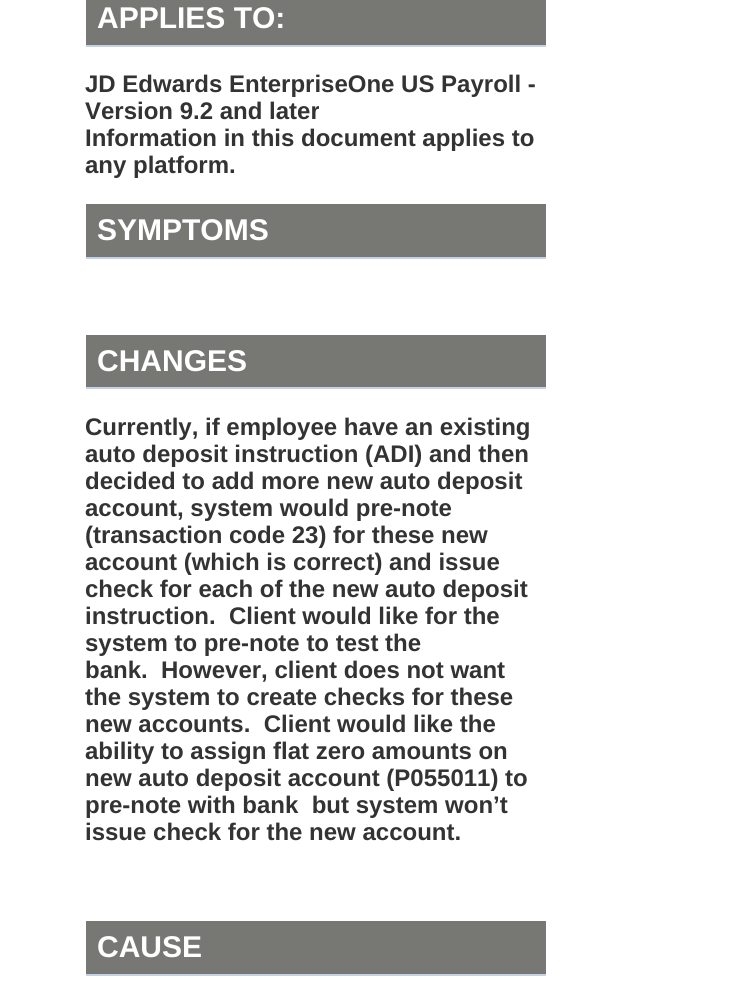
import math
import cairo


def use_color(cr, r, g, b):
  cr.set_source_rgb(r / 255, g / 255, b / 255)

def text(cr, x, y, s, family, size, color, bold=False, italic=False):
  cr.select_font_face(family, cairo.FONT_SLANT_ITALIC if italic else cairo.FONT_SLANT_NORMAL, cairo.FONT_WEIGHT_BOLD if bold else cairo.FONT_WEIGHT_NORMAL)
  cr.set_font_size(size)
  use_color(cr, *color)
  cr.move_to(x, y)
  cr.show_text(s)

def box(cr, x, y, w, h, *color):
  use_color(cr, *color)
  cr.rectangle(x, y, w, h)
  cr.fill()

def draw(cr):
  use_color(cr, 255, 255, 255)
  cr.paint()
  box(cr, 86, 0, 460, 45, 119, 119, 115)
  box(cr, 86, 45, 460, 2, 196, 209, 230)
  box(cr, 86, 204, 460, 53, 119, 119, 115)
  box(cr, 86, 257, 460, 2, 196, 209, 230)
  box(cr, 86, 335, 460, 52, 119, 119, 115)
  box(cr, 86, 387, 460, 2, 196, 209, 230)
  box(cr, 86, 921, 460, 53, 119, 119, 115)
  box(cr, 86, 974, 460, 2, 196, 209, 230)
  text(cr, 97, 28, "APPLIES TO:", "Liberation Sans", 30, (255, 255, 255), bold=True)
  text(cr, 85, 92, "JD Edwards EnterpriseOne US Payroll -", "Liberation Sans", 24, (51, 51, 51), bold=True)
  text(cr, 85, 119, "Version 9.2 and later", "Liberation Sans", 24, (51, 51, 51), bold=True)
  text(cr, 85, 146, "Information in this document applies to", "Liberation Sans", 24, (51, 51, 51), bold=True)
  text(cr, 85, 173, "any platform.", "Liberation Sans", 24, (51, 51, 51), bold=True)
  text(cr, 97, 240, "SYMPTOMS", "Liberation Sans", 30, (255, 255, 255), bold=True)
  text(cr, 97, 371, "CHANGES", "Liberation Sans", 30, (255, 255, 255), bold=True)
  text(cr, 85, 435, "Currently, if employee have an existing", "Liberation Sans", 24, (51, 51, 51), bold=True)
  text(cr, 85, 462, "auto deposit instruction (ADI) and then", "Liberation Sans", 24, (51, 51, 51), bold=True)
  text(cr, 85, 489, "decided to add more new auto deposit", "Liberation Sans", 24, (51, 51, 51), bold=True)
  text(cr, 85, 516, "account, system would pre-note", "Liberation Sans", 24, (51, 51, 51), bold=True)
  text(cr, 85, 543, "(transaction code 23) for these new", "Liberation Sans", 24, (51, 51, 51), bold=True)
  text(cr, 85, 570, "account (which is correct) and issue", "Liberation Sans", 24, (51, 51, 51), bold=True)
  text(cr, 85, 597, "check for each of the new auto deposit", "Liberation Sans", 24, (51, 51, 51), bold=True)
  text(cr, 85, 624, "instruction.  Client would like for the", "Liberation Sans", 24, (51, 51, 51), bold=True)
  text(cr, 85, 651, "system to pre-note to test the", "Liberation Sans", 24, (51, 51, 51), bold=True)
  text(cr, 85, 678, "bank.  However, client does not want", "Liberation Sans", 24, (51, 51, 51), bold=True)
  text(cr, 85, 705, "the system to create checks for these", "Liberation Sans", 24, (51, 51, 51), bold=True)
  text(cr, 85, 732, "new accounts.  Client would like the", "Liberation Sans", 24, (51, 51, 51), bold=True)
  text(cr, 85, 759, "ability to assign flat zero amounts on", "Liberation Sans", 24, (51, 51, 51), bold=True)
  text(cr, 85, 786, "new auto deposit account (P055011) to", "Liberation Sans", 24, (51, 51, 51), bold=True)
  text(cr, 85, 813, "pre-note with bank  but system won’t", "Liberation Sans", 24, (51, 51, 51), bold=True)
  text(cr, 85, 840, "issue check for the new account.", "Liberation Sans", 24, (51, 51, 51), bold=True)
  text(cr, 97, 957, "CAUSE", "Liberation Sans", 30, (255, 255, 255), bold=True)


surface = cairo.ImageSurface(cairo.FORMAT_RGB24, 755, 1005)
cr = cairo.Context(surface)
options = cairo.FontOptions()
options.set_hint_metrics(cairo.HINT_METRICS_OFF)
options.set_hint_style(cairo.HINT_STYLE_NONE)
cr.set_font_options(options)
cr.set_miter_limit(4)
draw(cr)
surface.write_to_png("out.png")
